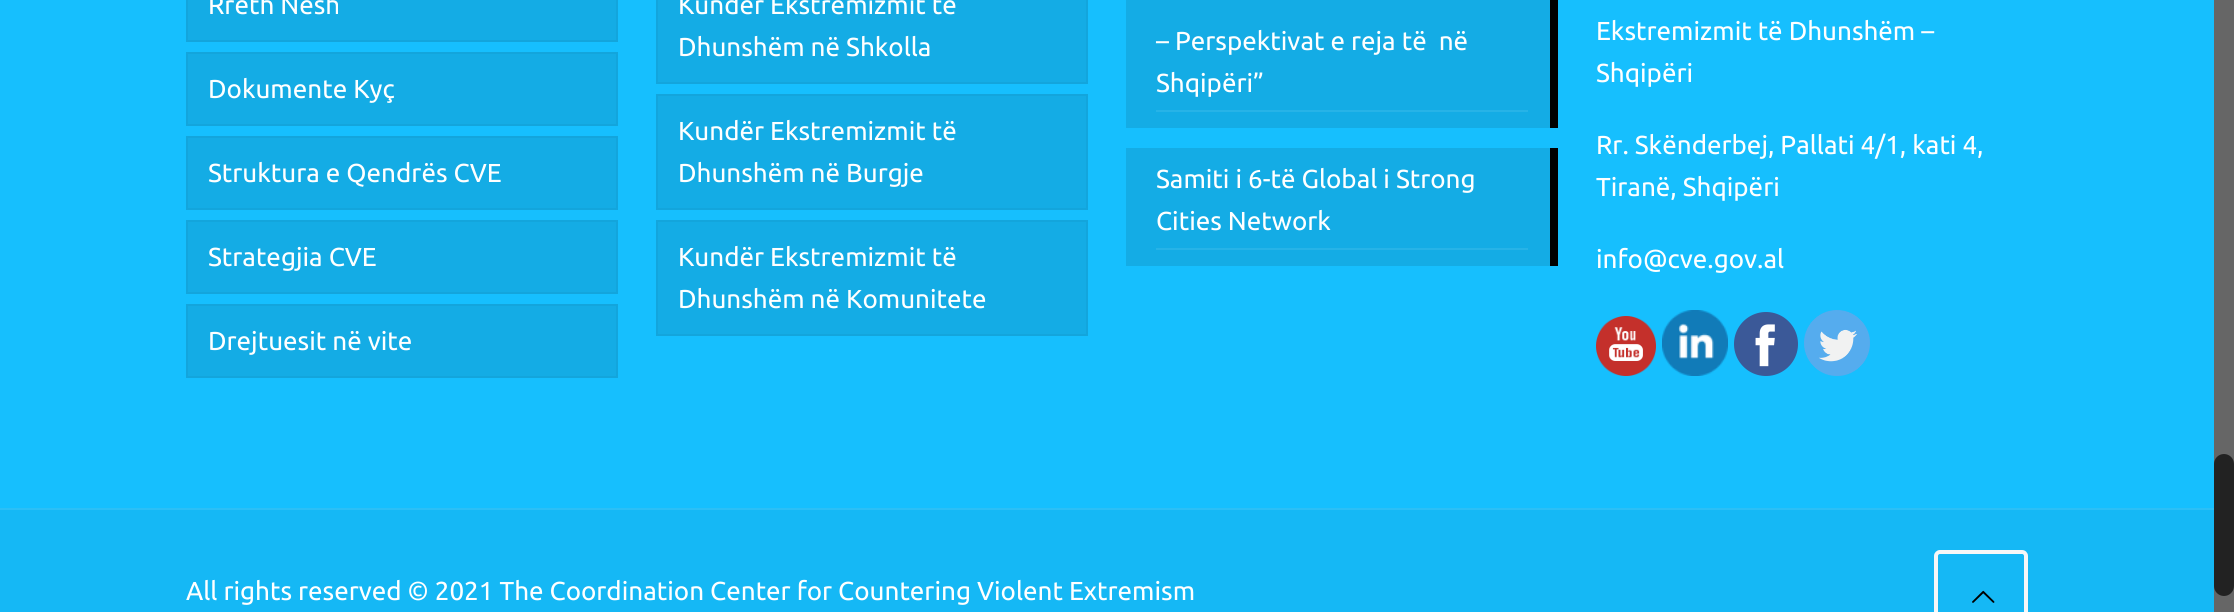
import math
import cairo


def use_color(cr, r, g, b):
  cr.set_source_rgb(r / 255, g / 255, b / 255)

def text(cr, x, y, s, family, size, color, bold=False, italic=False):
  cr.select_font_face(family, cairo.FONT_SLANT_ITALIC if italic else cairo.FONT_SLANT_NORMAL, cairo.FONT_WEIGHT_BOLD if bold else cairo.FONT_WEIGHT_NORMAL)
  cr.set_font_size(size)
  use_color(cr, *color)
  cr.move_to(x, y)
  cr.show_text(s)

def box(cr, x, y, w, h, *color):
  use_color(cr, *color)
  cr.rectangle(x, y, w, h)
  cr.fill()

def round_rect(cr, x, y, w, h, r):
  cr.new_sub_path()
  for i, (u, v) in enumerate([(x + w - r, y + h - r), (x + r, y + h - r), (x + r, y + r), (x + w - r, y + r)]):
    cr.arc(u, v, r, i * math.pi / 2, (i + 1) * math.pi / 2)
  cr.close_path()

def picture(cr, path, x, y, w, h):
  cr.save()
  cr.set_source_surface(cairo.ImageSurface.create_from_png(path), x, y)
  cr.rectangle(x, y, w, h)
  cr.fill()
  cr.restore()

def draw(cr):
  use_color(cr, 22, 191, 254)
  cr.paint()
  use_color(cr, 20, 172, 229)
  cr.rectangle(187, -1, 430, 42)
  cr.fill_preserve()
  use_color(cr, 19, 165, 220)
  cr.stroke()
  use_color(cr, 20, 172, 229)
  cr.rectangle(187, 53, 430, 72)
  cr.fill_preserve()
  use_color(cr, 19, 165, 220)
  cr.stroke()
  use_color(cr, 20, 172, 229)
  cr.rectangle(187, 137, 430, 72)
  cr.fill_preserve()
  use_color(cr, 19, 165, 220)
  cr.stroke()
  use_color(cr, 20, 172, 229)
  cr.rectangle(187, 221, 430, 72)
  cr.fill_preserve()
  use_color(cr, 19, 165, 220)
  cr.stroke()
  use_color(cr, 20, 172, 229)
  cr.rectangle(187, 305, 430, 72)
  cr.fill_preserve()
  use_color(cr, 19, 165, 220)
  cr.stroke()
  use_color(cr, 20, 172, 229)
  cr.rectangle(657, -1, 430, 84)
  cr.fill_preserve()
  use_color(cr, 19, 165, 220)
  cr.stroke()
  use_color(cr, 20, 172, 229)
  cr.rectangle(657, 95, 430, 114)
  cr.fill_preserve()
  use_color(cr, 19, 165, 220)
  cr.stroke()
  use_color(cr, 20, 172, 229)
  cr.rectangle(657, 221, 430, 114)
  cr.fill_preserve()
  use_color(cr, 19, 165, 220)
  cr.stroke()
  box(cr, 1126, 0, 424, 128, 20, 172, 229)
  box(cr, 1156, 110, 372, 2, 39, 179, 231)
  box(cr, 1550, 0, 8, 128, 0, 0, 0)
  box(cr, 1126, 148, 424, 118, 20, 172, 229)
  box(cr, 1156, 248, 372, 2, 39, 179, 231)
  box(cr, 1550, 148, 8, 118, 0, 0, 0)
  picture(cr, "img_01.png", 1596, 316, 60, 60)
  picture(cr, "img_02.png", 1662, 310, 66, 66)
  picture(cr, "img_03.png", 1734, 312, 64, 64)
  picture(cr, "img_04.png", 1804, 310, 66, 66)
  box(cr, 0, 510, 2214, 102, 21, 184, 245)
  box(cr, 0, 508, 2214, 2, 44, 191, 246)
  round_rect(cr, 1936, 552, 90, 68, 4)
  use_color(cr, 247, 247, 247)
  cr.set_line_width(4)
  cr.stroke()
  picture(cr, "img_05.png", 1972, 590, 23, 13)
  box(cr, 2214, 0, 20, 612, 102, 102, 102)
  use_color(cr, 34, 34, 34)
  round_rect(cr, 2214, 454, 20, 142, 10)
  cr.fill()
  text(cr, 208, 14, "Rreth Nesh", "Ubuntu", 26, (255, 255, 255))
  text(cr, 208, 98, "Dokumente Kyç", "Ubuntu", 26, (255, 255, 255))
  text(cr, 208, 182, "Struktura e Qendrës CVE", "Ubuntu", 26, (255, 255, 255))
  text(cr, 208, 266, "Strategjia CVE", "Ubuntu", 26, (255, 255, 255))
  text(cr, 208, 350, "Drejtuesit në vite", "Ubuntu", 26, (255, 255, 255))
  text(cr, 678, 14, "Kundër Ekstremizmit të", "Ubuntu", 26, (255, 255, 255))
  text(cr, 678, 56, "Dhunshëm në Shkolla", "Ubuntu", 26, (255, 255, 255))
  text(cr, 678, 140, "Kundër Ekstremizmit të", "Ubuntu", 26, (255, 255, 255))
  text(cr, 678, 182, "Dhunshëm në Burgje", "Ubuntu", 26, (255, 255, 255))
  text(cr, 678, 266, "Kundër Ekstremizmit të", "Ubuntu", 26, (255, 255, 255))
  text(cr, 678, 308, "Dhunshëm në Komunitete", "Ubuntu", 26, (255, 255, 255))
  text(cr, 1156, 50, "– Perspektivat e reja të  në", "Ubuntu", 26, (255, 255, 255))
  text(cr, 1156, 92, "Shqipëri”", "Ubuntu", 26, (255, 255, 255))
  text(cr, 1156, 188, "Samiti i 6-të Global i Strong", "Ubuntu", 26, (255, 255, 255))
  text(cr, 1156, 230, "Cities Network", "Ubuntu", 26, (255, 255, 255))
  text(cr, 1596, 40, "Ekstremizmit të Dhunshëm –", "Ubuntu", 26, (255, 255, 255))
  text(cr, 1596, 82, "Shqipëri", "Ubuntu", 26, (255, 255, 255))
  text(cr, 1596, 154, "Rr. Skënderbej, Pallati 4/1, kati 4,", "Ubuntu", 26, (255, 255, 255))
  text(cr, 1596, 196, "Tiranë, Shqipëri", "Ubuntu", 26, (255, 255, 255))
  text(cr, 1596, 268, "info@cve.gov.al", "Ubuntu", 26, (255, 255, 255))
  text(cr, 186, 600, "All rights reserved © 2021 The Coordination Center for Countering Violent Extremism", "Ubuntu", 26, (255, 255, 255))


surface = cairo.ImageSurface(cairo.FORMAT_RGB24, 2234, 612)
cr = cairo.Context(surface)
options = cairo.FontOptions()
options.set_hint_metrics(cairo.HINT_METRICS_OFF)
options.set_hint_style(cairo.HINT_STYLE_NONE)
cr.set_font_options(options)
cr.set_miter_limit(4)
draw(cr)
surface.write_to_png("out.png")
